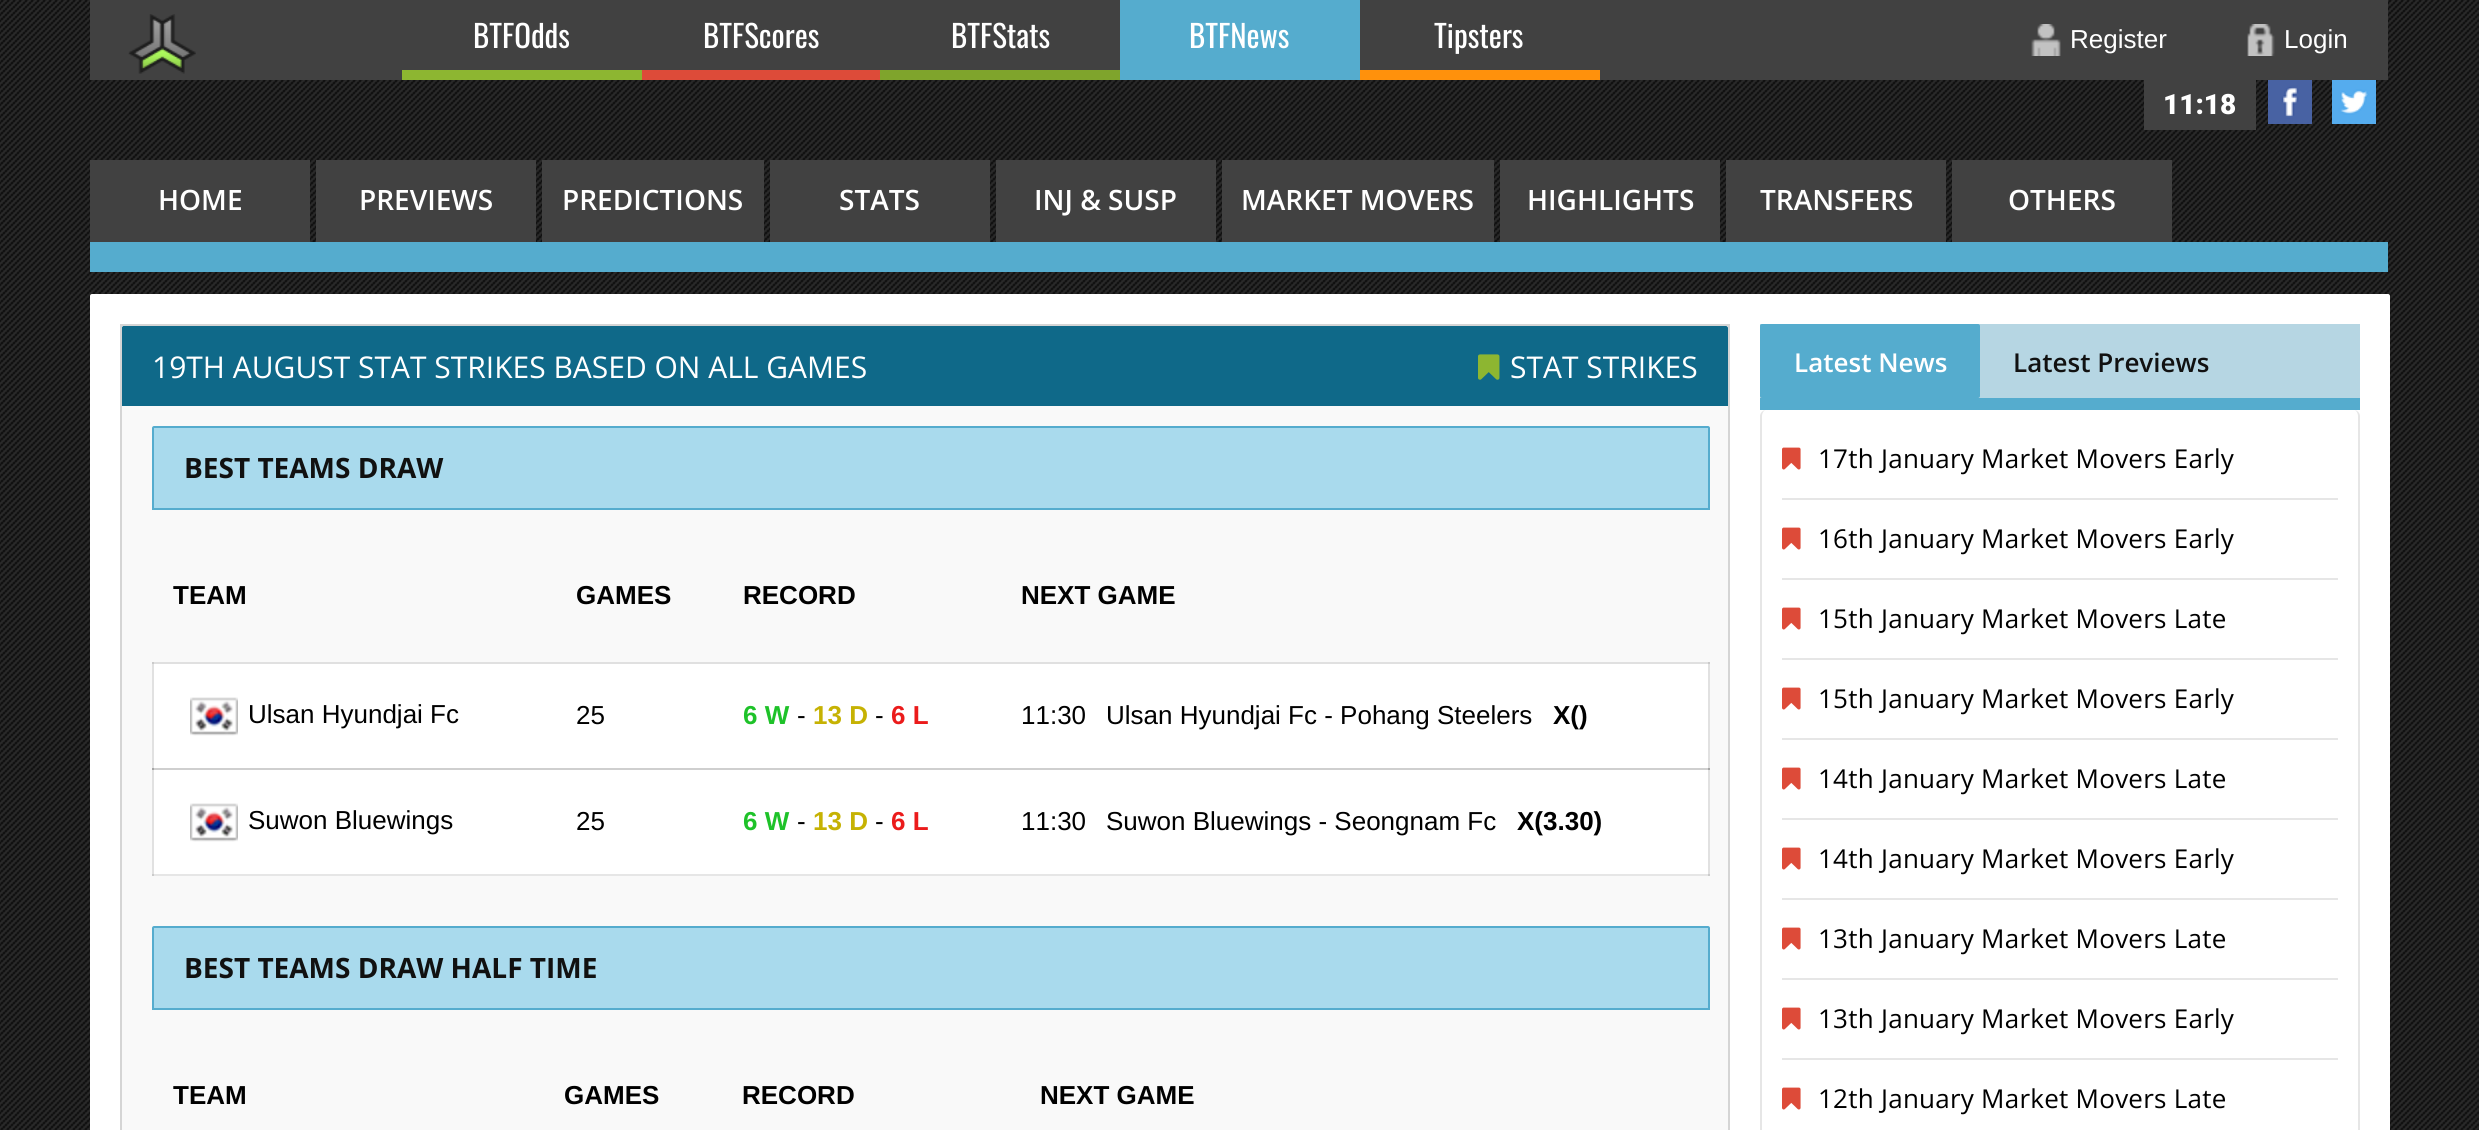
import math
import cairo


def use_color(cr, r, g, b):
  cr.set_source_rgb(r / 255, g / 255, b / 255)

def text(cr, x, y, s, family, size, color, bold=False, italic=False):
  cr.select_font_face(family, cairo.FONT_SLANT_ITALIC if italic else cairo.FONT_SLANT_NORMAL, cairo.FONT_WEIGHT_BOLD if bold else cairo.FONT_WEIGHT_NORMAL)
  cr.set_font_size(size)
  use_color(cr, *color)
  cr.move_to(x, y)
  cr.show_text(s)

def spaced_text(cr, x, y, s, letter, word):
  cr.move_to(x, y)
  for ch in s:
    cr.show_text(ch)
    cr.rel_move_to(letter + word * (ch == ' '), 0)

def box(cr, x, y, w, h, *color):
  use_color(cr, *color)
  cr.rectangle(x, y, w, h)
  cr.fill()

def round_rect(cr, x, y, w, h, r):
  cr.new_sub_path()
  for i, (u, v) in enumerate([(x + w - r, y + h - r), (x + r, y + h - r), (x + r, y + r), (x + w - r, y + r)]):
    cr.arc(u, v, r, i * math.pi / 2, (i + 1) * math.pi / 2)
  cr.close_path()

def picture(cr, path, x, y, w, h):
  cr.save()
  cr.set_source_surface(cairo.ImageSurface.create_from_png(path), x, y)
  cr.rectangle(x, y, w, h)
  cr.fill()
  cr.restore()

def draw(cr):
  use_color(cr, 255, 255, 255)
  cr.paint()
  picture(cr, "img_01.png", 0, 0, 2479, 1130)
  box(cr, 90, 0, 2298, 80, 65, 65, 65)
  picture(cr, "img_02.png", 128, 14, 68, 60)
  box(cr, 402, 70, 240, 10, 141, 182, 49)
  box(cr, 642, 70, 238, 10, 221, 75, 57)
  box(cr, 880, 70, 240, 10, 127, 164, 44)
  box(cr, 1120, 0, 240, 80, 85, 172, 206)
  box(cr, 1360, 70, 240, 10, 255, 145, 12)
  picture(cr, "img_03.png", 2031, 24, 30, 32)
  picture(cr, "img_04.png", 2247, 24, 28, 32)
  box(cr, 2144, 80, 112, 50, 65, 65, 65)
  picture(cr, "img_05.png", 2268, 80, 44, 44)
  picture(cr, "img_06.png", 2332, 80, 44, 44)
  box(cr, 90, 160, 220, 82, 65, 65, 65)
  box(cr, 316, 160, 220, 82, 65, 65, 65)
  box(cr, 542, 160, 222, 82, 65, 65, 65)
  box(cr, 770, 160, 220, 82, 65, 65, 65)
  box(cr, 996, 160, 220, 82, 65, 65, 65)
  box(cr, 1222, 160, 272, 82, 65, 65, 65)
  box(cr, 1500, 160, 220, 82, 65, 65, 65)
  box(cr, 1726, 160, 220, 82, 65, 65, 65)
  box(cr, 1952, 160, 220, 82, 65, 65, 65)
  box(cr, 90, 242, 2298, 30, 85, 172, 206)
  use_color(cr, 255, 255, 255)
  round_rect(cr, 90, 294, 2300, 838, 2)
  cr.fill()
  use_color(cr, 249, 249, 249)
  cr.rectangle(121, 325, 1608, 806)
  cr.fill_preserve()
  use_color(cr, 213, 213, 213)
  cr.stroke()
  use_color(cr, 15, 105, 137)
  cr.new_path()
  cr.move_to(124, 326)
  cr.line_to(1726, 326)
  cr.curve_to(1727, 326, 1728, 327, 1728, 328)
  cr.line_to(1728, 406)
  cr.line_to(122, 406)
  cr.line_to(122, 328)
  cr.curve_to(122, 327, 123, 326, 124, 326)
  cr.close_path()
  cr.fill()
  cr.new_path()
  cr.move_to(124, 326)
  cr.line_to(866, 326)
  cr.curve_to(867, 326, 868, 327, 868, 328)
  cr.line_to(868, 406)
  cr.line_to(122, 406)
  cr.line_to(122, 328)
  cr.curve_to(122, 327, 123, 326, 124, 326)
  cr.close_path()
  cr.fill()
  picture(cr, "img_07.png", 1478, 354, 22, 26)
  use_color(cr, 169, 218, 237)
  cr.new_path()
  cr.move_to(154, 427)
  cr.line_to(1708, 427)
  cr.curve_to(1708.5, 427, 1709, 427.5, 1709, 428)
  cr.line_to(1709, 509)
  cr.line_to(153, 509)
  cr.line_to(153, 428)
  cr.curve_to(153, 427.5, 153.5, 427, 154, 427)
  cr.close_path()
  cr.fill_preserve()
  use_color(cr, 85, 172, 206)
  cr.stroke()
  box(cr, 154, 664, 1554, 212, 255, 255, 255)
  box(cr, 152, 662, 1558, 2, 224, 224, 224)
  cr.set_source_rgba(0, 0, 0, 0.1)
  cr.rectangle(152, 768, 1558, 2)
  cr.fill()
  cr.rectangle(1708, 768, 2, 108)
  cr.fill()
  cr.rectangle(1708, 662, 2, 108)
  cr.fill()
  cr.rectangle(152, 874, 1558, 2)
  cr.fill()
  cr.rectangle(152, 768, 2, 108)
  cr.fill()
  cr.rectangle(152, 768, 1558, 2)
  cr.fill()
  cr.rectangle(152, 662, 2, 108)
  cr.fill()
  picture(cr, "img_08.png", 190, 697, 48, 39)
  picture(cr, "img_08.png", 190, 803, 48, 39)
  use_color(cr, 169, 218, 237)
  cr.new_path()
  cr.move_to(154, 927)
  cr.line_to(1708, 927)
  cr.curve_to(1708.5, 927, 1709, 927.5, 1709, 928)
  cr.line_to(1709, 1009)
  cr.line_to(153, 1009)
  cr.line_to(153, 928)
  cr.curve_to(153, 927.5, 153.5, 927, 154, 927)
  cr.close_path()
  cr.fill_preserve()
  use_color(cr, 85, 172, 206)
  cr.stroke()
  box(cr, 1760, 324, 600, 74, 182, 214, 227)
  box(cr, 1760, 398, 600, 12, 85, 172, 206)
  round_rect(cr, 1760, 324, 220, 74, 2)
  cr.fill()
  use_color(cr, 230, 230, 230)
  cr.set_fill_rule(cairo.FILL_RULE_EVEN_ODD)
  cr.new_path()
  cr.move_to(1766, 410)
  cr.line_to(2354, 410)
  cr.curve_to(2357, 410, 2360, 413, 2360, 416)
  cr.line_to(2360, 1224)
  cr.curve_to(2360, 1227, 2357, 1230, 2354, 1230)
  cr.line_to(1766, 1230)
  cr.curve_to(1763, 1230, 1760, 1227, 1760, 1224)
  cr.line_to(1760, 416)
  cr.curve_to(1760, 413, 1763, 410, 1766, 410)
  cr.close_path()
  cr.move_to(1766, 410)
  cr.line_to(2354, 410)
  cr.curve_to(2356, 410, 2358, 413, 2358, 416)
  cr.line_to(2358, 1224)
  cr.curve_to(2358, 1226, 2356, 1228, 2354, 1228)
  cr.line_to(1766, 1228)
  cr.curve_to(1764, 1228, 1762, 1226, 1762, 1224)
  cr.line_to(1762, 416)
  cr.curve_to(1762, 413, 1764, 410, 1766, 410)
  cr.close_path()
  cr.fill()
  box(cr, 1782, 498, 556, 2, 230, 230, 230)
  picture(cr, "img_09.png", 1782, 447, 19, 23)
  box(cr, 1782, 578, 556, 2, 230, 230, 230)
  picture(cr, "img_09.png", 1782, 527, 19, 23)
  box(cr, 1782, 658, 556, 2, 230, 230, 230)
  picture(cr, "img_09.png", 1782, 607, 19, 23)
  box(cr, 1782, 738, 556, 2, 230, 230, 230)
  picture(cr, "img_09.png", 1782, 687, 19, 23)
  box(cr, 1782, 818, 556, 2, 230, 230, 230)
  picture(cr, "img_09.png", 1782, 767, 19, 23)
  box(cr, 1782, 898, 556, 2, 230, 230, 230)
  picture(cr, "img_09.png", 1782, 847, 19, 23)
  box(cr, 1782, 978, 556, 2, 230, 230, 230)
  picture(cr, "img_09.png", 1782, 927, 19, 23)
  box(cr, 1782, 1058, 556, 2, 230, 230, 230)
  picture(cr, "img_09.png", 1782, 1007, 19, 23)
  picture(cr, "img_09.png", 1782, 1087, 19, 23)
  text(cr, 473, 48, "BTFOdds", "Oswald", 31, (255, 255, 255))
  text(cr, 703, 48, "BTFScores", "Oswald", 31, (255, 255, 255))
  text(cr, 951, 48, "BTFStats", "Oswald", 31, (255, 255, 255))
  text(cr, 1189, 48, "BTFNews", "Oswald", 31, (255, 255, 255))
  text(cr, 1434, 48, "Tipsters", "Oswald", 31, (255, 255, 255))
  text(cr, 2070, 48, "Register", "Liberation Sans", 26, (255, 255, 255))
  text(cr, 2284, 48, "Login", "Liberation Sans", 26, (255, 255, 255))
  text(cr, 2163, 114, "11:18", "Roboto Black", 28, (255, 255, 255))
  text(cr, 158, 210, "HOME", "Open Sans SemiBold", 28, (255, 255, 255))
  text(cr, 359, 210, "PREVIEWS", "Open Sans SemiBold", 28, (255, 255, 255))
  text(cr, 562, 210, "PREDICTIONS", "Open Sans SemiBold", 28, (255, 255, 255))
  text(cr, 839, 210, "STATS", "Open Sans SemiBold", 28, (255, 255, 255))
  text(cr, 1034, 210, "INJ & SUSP", "Open Sans SemiBold", 28, (255, 255, 255))
  text(cr, 1241, 210, "MARKET MOVERS", "Open Sans SemiBold", 28, (255, 255, 255))
  text(cr, 1527, 210, "HIGHLIGHTS", "Open Sans SemiBold", 28, (255, 255, 255))
  text(cr, 1760, 210, "TRANSFERS", "Open Sans SemiBold", 28, (255, 255, 255))
  text(cr, 2008, 210, "OTHERS", "Open Sans SemiBold", 28, (255, 255, 255))
  text(cr, 152, 378, "19TH AUGUST STAT STRIKES BASED ON ALL GAMES", "Open Sans", 30, (255, 255, 255))
  text(cr, 1510, 378, "STAT STRIKES", "Open Sans", 30, (255, 255, 255))
  text(cr, 184, 478, "BEST TEAMS DRAW", "Open Sans", 28, (17, 17, 17), bold=True)
  text(cr, 173, 604, "TEAM", "Liberation Sans", 26, (0, 0, 0), bold=True)
  text(cr, 576, 604, "GAMES", "Liberation Sans", 26, (0, 0, 0), bold=True)
  text(cr, 743, 604, "RECORD", "Liberation Sans", 26, (0, 0, 0), bold=True)
  text(cr, 1021, 604, "NEXT GAME", "Liberation Sans", 26, (0, 0, 0), bold=True)
  text(cr, 248, 723, "Ulsan Hyundjai Fc", "Liberation Sans", 26, (0, 0, 0))
  text(cr, 576, 724, "25", "Liberation Sans", 26, (0, 0, 0))
  text(cr, 743, 724, "6 W", "Liberation Sans", 26, (30, 194, 41), bold=True)
  text(cr, 797, 724, "-", "Liberation Sans", 26, (0, 0, 0))
  text(cr, 813, 724, "13 D", "Liberation Sans", 26, (198, 178, 3), bold=True)
  text(cr, 875, 724, "-", "Liberation Sans", 26, (0, 0, 0))
  text(cr, 891, 724, "6 L", "Liberation Sans", 26, (235, 27, 27), bold=True)
  text(cr, 1021, 724, "11:30", "Liberation Sans", 26, (0, 0, 0))
  text(cr, 1106, 724, "Ulsan Hyundjai Fc - Pohang Steelers", "Liberation Sans", 26, (0, 0, 0))
  text(cr, 1553, 724, "X()", "Liberation Sans", 26, (0, 0, 0), bold=True)
  text(cr, 248, 829, "Suwon Bluewings", "Liberation Sans", 26, (0, 0, 0))
  text(cr, 576, 830, "25", "Liberation Sans", 26, (0, 0, 0))
  text(cr, 743, 830, "6 W", "Liberation Sans", 26, (30, 194, 41), bold=True)
  text(cr, 797, 830, "-", "Liberation Sans", 26, (0, 0, 0))
  text(cr, 813, 830, "13 D", "Liberation Sans", 26, (198, 178, 3), bold=True)
  text(cr, 875, 830, "-", "Liberation Sans", 26, (0, 0, 0))
  text(cr, 891, 830, "6 L", "Liberation Sans", 26, (235, 27, 27), bold=True)
  text(cr, 1021, 830, "11:30", "Liberation Sans", 26, (0, 0, 0))
  text(cr, 1106, 830, "Suwon Bluewings - Seongnam Fc", "Liberation Sans", 26, (0, 0, 0))
  text(cr, 1517, 830, "X(3.30)", "Liberation Sans", 26, (0, 0, 0), bold=True)
  text(cr, 184, 978, "BEST TEAMS DRAW HALF TIME", "Open Sans", 28, (17, 17, 17), bold=True)
  text(cr, 173, 1104, "TEAM", "Liberation Sans", 26, (0, 0, 0), bold=True)
  text(cr, 564, 1104, "GAMES", "Liberation Sans", 26, (0, 0, 0), bold=True)
  text(cr, 742, 1104, "RECORD", "Liberation Sans", 26, (0, 0, 0), bold=True)
  text(cr, 1040, 1104, "NEXT GAME", "Liberation Sans", 26, (0, 0, 0), bold=True)
  text(cr, 1794, 372, "Latest News", "Open Sans SemiBold", 26, (255, 255, 255))
  text(cr, 2013, 372, "Latest Previews", "Open Sans SemiBold", 26, (17, 17, 17))
  cr.select_font_face("Open Sans")
  use_color(cr, 0, 0, 0)
  spaced_text(cr, 1818, 468, "17th January Market Movers Early", 0.25, 0)
  spaced_text(cr, 1818, 548, "16th January Market Movers Early", 0.25, 0)
  spaced_text(cr, 1818, 628, "15th January Market Movers Late", 0.25, 0)
  spaced_text(cr, 1818, 708, "15th January Market Movers Early", 0.25, 0)
  spaced_text(cr, 1818, 788, "14th January Market Movers Late", 0.25, 0)
  spaced_text(cr, 1818, 868, "14th January Market Movers Early", 0.25, 0)
  spaced_text(cr, 1818, 948, "13th January Market Movers Late", 0.25, 0)
  spaced_text(cr, 1818, 1028, "13th January Market Movers Early", 0.25, 0)
  spaced_text(cr, 1818, 1108, "12th January Market Movers Late", 0.25, 0)


surface = cairo.ImageSurface(cairo.FORMAT_RGB24, 2479, 1130)
cr = cairo.Context(surface)
options = cairo.FontOptions()
options.set_hint_metrics(cairo.HINT_METRICS_OFF)
options.set_hint_style(cairo.HINT_STYLE_NONE)
cr.set_font_options(options)
cr.set_miter_limit(4)
draw(cr)
surface.write_to_png("out.png")
